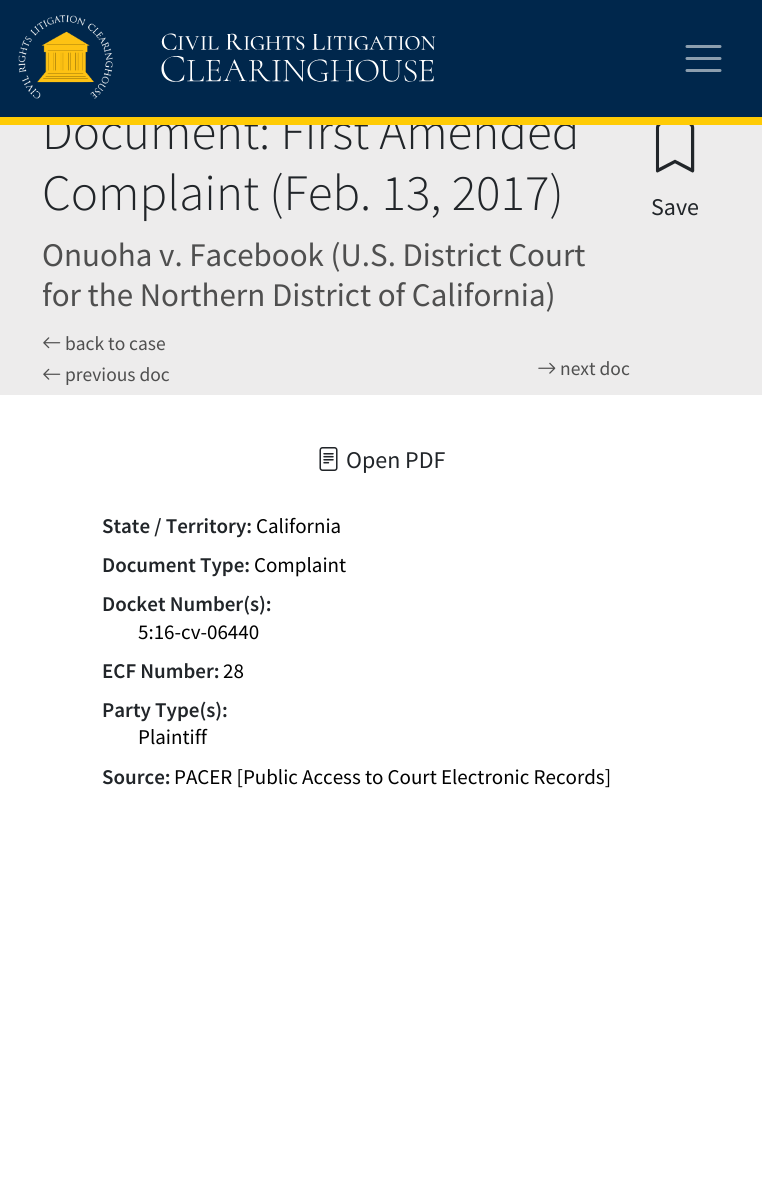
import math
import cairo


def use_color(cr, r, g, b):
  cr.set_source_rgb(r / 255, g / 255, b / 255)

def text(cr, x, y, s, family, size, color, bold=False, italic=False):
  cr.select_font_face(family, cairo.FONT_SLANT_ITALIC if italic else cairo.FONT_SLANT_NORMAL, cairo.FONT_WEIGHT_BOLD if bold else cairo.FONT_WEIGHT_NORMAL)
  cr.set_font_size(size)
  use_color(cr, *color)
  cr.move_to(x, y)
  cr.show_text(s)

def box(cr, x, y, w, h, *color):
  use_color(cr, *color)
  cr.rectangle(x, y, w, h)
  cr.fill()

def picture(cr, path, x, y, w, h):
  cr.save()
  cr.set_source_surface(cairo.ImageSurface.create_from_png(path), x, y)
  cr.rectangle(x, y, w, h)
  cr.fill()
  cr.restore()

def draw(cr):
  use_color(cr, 237, 236, 236)
  cr.paint()
  picture(cr, "img_03.png", 43, 337, 18, 12)
  picture(cr, "img_04.png", 43, 368, 18, 12)
  picture(cr, "img_05.png", 538, 362, 18, 12)
  picture(cr, "img_06.png", 655, 125, 40, 48)
  box(cr, 0, 395, 762, 793, 255, 255, 255)
  picture(cr, "img_07.png", 319, 447, 19, 24)
  text(cr, 42, 149, "Document: First Amended", "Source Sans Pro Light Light", 51, (33, 37, 41))
  box(cr, 0, 0, 762, 117, 0, 39, 76)
  cr.new_path()
  cr.move_to(687, 46.5)
  cr.line_to(720, 46.5)
  cr.move_to(687, 58.5)
  cr.line_to(720, 58.5)
  cr.move_to(687, 70.5)
  cr.line_to(720, 70.5)
  use_color(cr, 140, 158, 174)
  cr.set_line_width(3)
  cr.set_line_cap(cairo.LINE_CAP_ROUND)
  cr.stroke()
  picture(cr, "img_02.png", 161, 33, 275, 49)
  picture(cr, "img_01.png", 18, 15, 95, 84)
  box(cr, 0, 117, 762, 8, 255, 203, 5)
  text(cr, 42, 210, "Complaint (Feb. 13, 2017)", "Source Sans Pro Light Light", 51, (33, 37, 41))
  text(cr, 42, 266, "Onuoha v. Facebook (U.S. District Court", "Source Sans Pro", 33, (79, 79, 79))
  text(cr, 42, 306, "for the Northern District of California)", "Source Sans Pro", 33, (79, 79, 79))
  text(cr, 65, 350, "back to case", "Source Sans Pro", 19.5, (79, 79, 79))
  text(cr, 65, 381, "previous doc", "Source Sans Pro", 19.5, (79, 79, 79))
  text(cr, 560, 375, "next doc", "Source Sans Pro", 19.5, (79, 79, 79))
  text(cr, 651, 215, "Save", "Source Sans Pro", 24, (33, 37, 41))
  text(cr, 346, 468, "Open PDF", "Source Sans Pro", 24, (33, 37, 41))
  text(cr, 102, 533, "State / Territory:", "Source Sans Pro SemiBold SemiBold", 21, (33, 37, 41))
  text(cr, 256, 533, "California", "Source Sans Pro", 21, (0, 0, 0))
  text(cr, 102, 572, "Document Type:", "Source Sans Pro SemiBold SemiBold", 21, (33, 37, 41))
  text(cr, 254, 572, "Complaint", "Source Sans Pro", 21, (0, 0, 0))
  text(cr, 102, 611, "Docket Number(s):", "Source Sans Pro SemiBold SemiBold", 21, (33, 37, 41))
  text(cr, 138, 639, "5:16-cv-06440", "Source Sans Pro", 21, (0, 0, 0))
  text(cr, 102, 678, "ECF Number:", "Source Sans Pro SemiBold SemiBold", 21, (33, 37, 41))
  text(cr, 223, 678, "28", "Source Sans Pro", 21, (0, 0, 0))
  text(cr, 102, 717, "Party Type(s):", "Source Sans Pro SemiBold SemiBold", 21, (33, 37, 41))
  text(cr, 138, 744, "Plaintiff", "Source Sans Pro", 21, (0, 0, 0))
  text(cr, 102, 784, "Source:", "Source Sans Pro SemiBold SemiBold", 21, (33, 37, 41))
  text(cr, 174, 784, "PACER [Public Access to Court Electronic Records]", "Source Sans Pro", 21, (0, 0, 0))


surface = cairo.ImageSurface(cairo.FORMAT_RGB24, 762, 1188)
cr = cairo.Context(surface)
options = cairo.FontOptions()
options.set_hint_metrics(cairo.HINT_METRICS_OFF)
options.set_hint_style(cairo.HINT_STYLE_NONE)
cr.set_font_options(options)
cr.set_miter_limit(4)
draw(cr)
surface.write_to_png("out.png")
